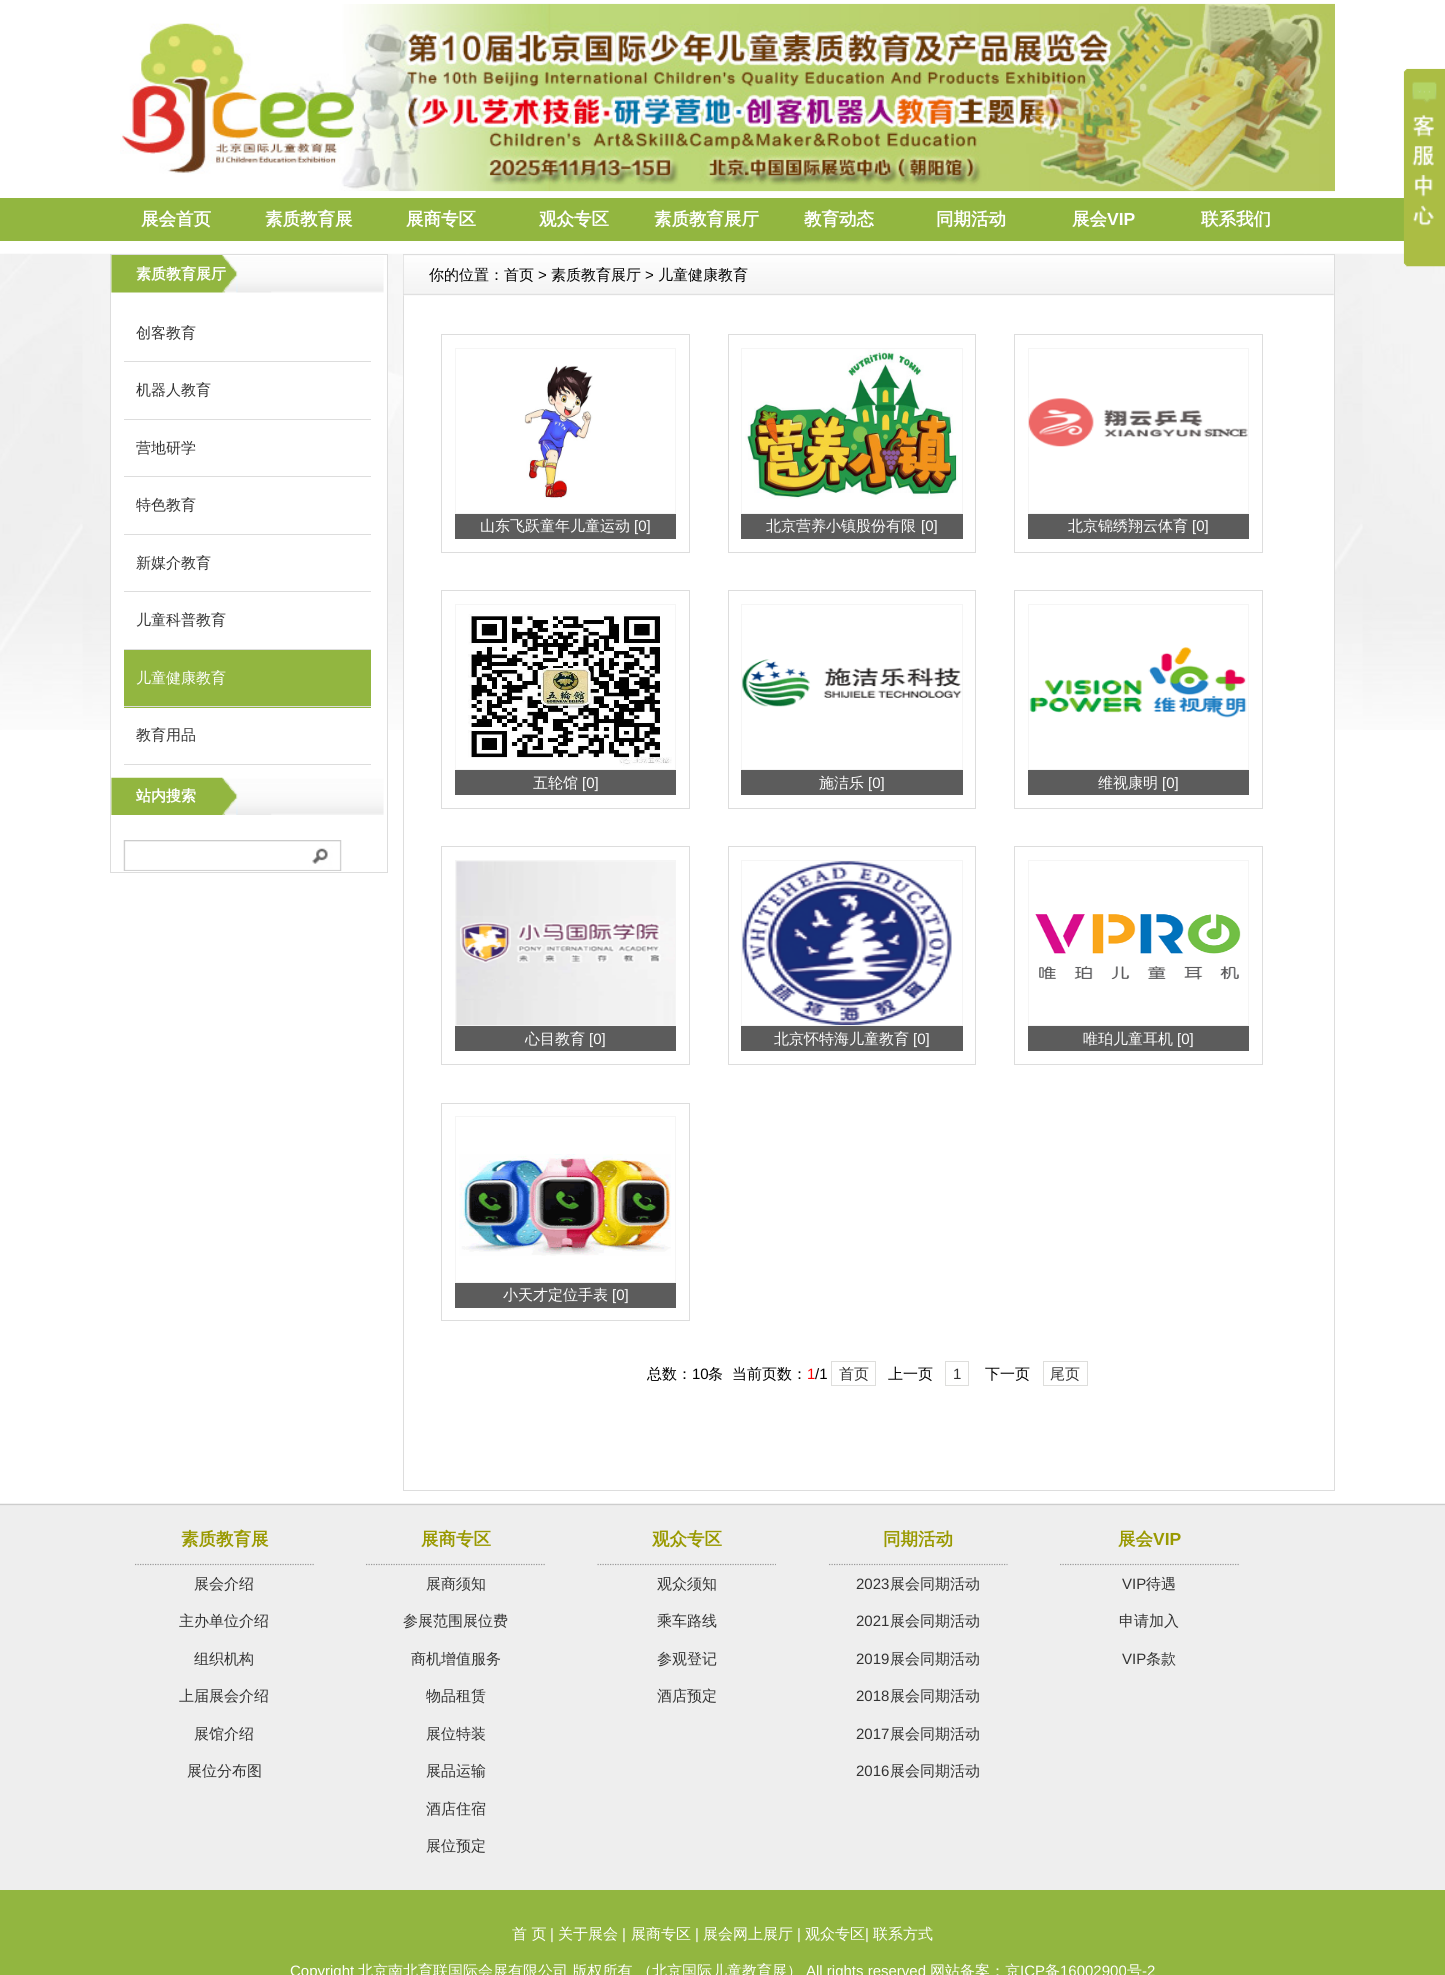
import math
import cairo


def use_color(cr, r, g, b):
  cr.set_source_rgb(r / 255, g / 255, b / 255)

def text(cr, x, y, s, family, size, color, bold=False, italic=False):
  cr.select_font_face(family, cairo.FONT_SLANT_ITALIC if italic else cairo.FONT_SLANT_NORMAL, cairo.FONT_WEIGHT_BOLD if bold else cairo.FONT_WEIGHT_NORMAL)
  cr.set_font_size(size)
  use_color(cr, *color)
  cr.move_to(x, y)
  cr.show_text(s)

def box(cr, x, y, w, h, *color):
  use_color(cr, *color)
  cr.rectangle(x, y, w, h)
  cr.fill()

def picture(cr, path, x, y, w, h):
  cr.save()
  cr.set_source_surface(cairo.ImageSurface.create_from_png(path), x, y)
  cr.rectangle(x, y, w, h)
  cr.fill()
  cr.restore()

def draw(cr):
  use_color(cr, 255, 255, 255)
  cr.paint()
  box(cr, 0, 198, 1404, 43, 146, 182, 64)
  picture(cr, "img_03.png", 0, 253, 1445, 477)
  picture(cr, "img_01.png", 1403, 68, 42, 199)
  picture(cr, "img_02.png", 120, 3, 1215, 189)
  box(cr, 111, 255, 276, 475, 255, 255, 255)
  cr.rectangle(110.5, 254.5, 277, 618)
  use_color(cr, 221, 221, 221)
  cr.set_line_width(1)
  cr.stroke()
  picture(cr, "img_04.png", 111, 255, 273, 38)
  box(cr, 124, 361, 247, 1, 221, 221, 221)
  box(cr, 124, 419, 247, 1, 221, 221, 221)
  box(cr, 124, 476, 247, 1, 221, 221, 221)
  box(cr, 124, 534, 247, 1, 221, 221, 221)
  box(cr, 124, 591, 247, 1, 221, 221, 221)
  box(cr, 124, 649, 247, 1, 221, 221, 221)
  box(cr, 124, 650, 247, 58, 146, 182, 64)
  box(cr, 124, 706, 247, 1, 221, 221, 221)
  box(cr, 124, 764, 247, 1, 221, 221, 221)
  picture(cr, "img_05.png", 111, 777, 273, 38)
  picture(cr, "img_06.png", 123, 840, 219, 31)
  box(cr, 404, 255, 930, 475, 255, 255, 255)
  cr.rectangle(403.5, 254.5, 931, 1236)
  use_color(cr, 221, 221, 221)
  cr.stroke()
  picture(cr, "img_07.png", 403, 255, 931, 41)
  cr.rectangle(441.5, 334.5, 248, 218)
  cr.stroke()
  cr.rectangle(455.5, 348.5, 220, 165)
  use_color(cr, 245, 245, 245)
  cr.stroke()
  picture(cr, "img_08.png", 524, 365, 69, 135)
  box(cr, 455, 514, 221, 25, 92, 92, 92)
  cr.rectangle(728.5, 334.5, 247, 218)
  use_color(cr, 221, 221, 221)
  cr.stroke()
  cr.rectangle(741.5, 348.5, 221, 165)
  use_color(cr, 245, 245, 245)
  cr.stroke()
  picture(cr, "img_09.png", 745, 349, 213, 150)
  box(cr, 741, 514, 222, 25, 92, 92, 92)
  cr.rectangle(1014.5, 334.5, 248, 218)
  use_color(cr, 221, 221, 221)
  cr.stroke()
  cr.rectangle(1028.5, 348.5, 220, 165)
  use_color(cr, 245, 245, 245)
  cr.stroke()
  picture(cr, "img_10.png", 1028, 398, 220, 49)
  box(cr, 1028, 514, 221, 25, 92, 92, 92)
  cr.rectangle(441.5, 590.5, 248, 218)
  use_color(cr, 221, 221, 221)
  cr.stroke()
  cr.rectangle(455.5, 604.5, 220, 165)
  use_color(cr, 245, 245, 245)
  cr.stroke()
  picture(cr, "img_11.png", 468, 614, 204, 152)
  box(cr, 455, 770, 221, 25, 92, 92, 92)
  cr.rectangle(728.5, 590.5, 247, 218)
  use_color(cr, 221, 221, 221)
  cr.stroke()
  cr.rectangle(741.5, 604.5, 221, 165)
  use_color(cr, 245, 245, 245)
  cr.stroke()
  picture(cr, "img_12.png", 742, 659, 220, 48)
  box(cr, 741, 770, 222, 25, 92, 92, 92)
  cr.rectangle(1014.5, 590.5, 248, 218)
  use_color(cr, 221, 221, 221)
  cr.stroke()
  cr.rectangle(1028.5, 604.5, 220, 165)
  use_color(cr, 245, 245, 245)
  cr.stroke()
  picture(cr, "img_13.png", 1029, 647, 218, 71)
  box(cr, 1028, 770, 221, 25, 92, 92, 92)
  cr.rectangle(441.5, 846.5, 248, 218)
  use_color(cr, 221, 221, 221)
  cr.stroke()
  cr.rectangle(455.5, 860.5, 220, 165)
  use_color(cr, 245, 245, 245)
  cr.stroke()
  picture(cr, "img_14.png", 456, 861, 219, 164)
  box(cr, 455, 1026, 221, 25, 92, 92, 92)
  cr.rectangle(728.5, 846.5, 247, 218)
  use_color(cr, 221, 221, 221)
  cr.stroke()
  cr.rectangle(741.5, 860.5, 221, 165)
  use_color(cr, 245, 245, 245)
  cr.stroke()
  picture(cr, "img_15.png", 742, 861, 210, 164)
  box(cr, 741, 1026, 222, 25, 92, 92, 92)
  cr.rectangle(1014.5, 846.5, 248, 218)
  use_color(cr, 221, 221, 221)
  cr.stroke()
  cr.rectangle(1028.5, 860.5, 220, 165)
  use_color(cr, 245, 245, 245)
  cr.stroke()
  picture(cr, "img_16.png", 1035, 914, 206, 66)
  box(cr, 1028, 1026, 221, 25, 92, 92, 92)
  cr.rectangle(441.5, 1103.5, 248, 217)
  use_color(cr, 221, 221, 221)
  cr.stroke()
  cr.rectangle(455.5, 1116.5, 220, 166)
  use_color(cr, 245, 245, 245)
  cr.stroke()
  picture(cr, "img_17.png", 459, 1154, 212, 102)
  box(cr, 455, 1283, 221, 25, 92, 92, 92)
  cr.rectangle(831.5, 1361.5, 44, 24)
  use_color(cr, 222, 222, 220)
  cr.stroke()
  cr.rectangle(945.5, 1361.5, 23, 24)
  cr.stroke()
  cr.rectangle(1043.5, 1361.5, 44, 24)
  cr.stroke()
  picture(cr, "img_18.png", 0, 1503, 1445, 387)
  cr.new_path()
  cr.move_to(135, 1564.5)
  cr.line_to(314, 1564.5)
  use_color(cr, 153, 153, 153)
  cr.set_line_width(1.2)
  cr.set_dash([1.25, 1.25])
  cr.stroke()
  cr.new_path()
  cr.move_to(366, 1564.5)
  cr.line_to(545, 1564.5)
  cr.stroke()
  cr.new_path()
  cr.move_to(597.5, 1564.5)
  cr.line_to(776, 1564.5)
  cr.stroke()
  cr.new_path()
  cr.move_to(829, 1564.5)
  cr.line_to(1007.5, 1564.5)
  cr.stroke()
  cr.new_path()
  cr.move_to(1060, 1564.5)
  cr.line_to(1239, 1564.5)
  cr.stroke()
  box(cr, 0, 1890, 1445, 85, 146, 182, 64)
  text(cr, 141, 225, "展会首页", "WenQuanYi Zen Hei", 17.5, (255, 255, 255), bold=True)
  text(cr, 265, 225, "素质教育展", "WenQuanYi Zen Hei", 17.5, (255, 255, 255), bold=True)
  text(cr, 406, 225, "展商专区", "WenQuanYi Zen Hei", 17.5, (255, 255, 255), bold=True)
  text(cr, 539, 225, "观众专区", "WenQuanYi Zen Hei", 17.5, (255, 255, 255), bold=True)
  text(cr, 654, 225, "素质教育展厅", "WenQuanYi Zen Hei", 17.5, (255, 255, 255), bold=True)
  text(cr, 804, 225, "教育动态", "WenQuanYi Zen Hei", 17.5, (255, 255, 255), bold=True)
  text(cr, 936, 225, "同期活动", "WenQuanYi Zen Hei", 17.5, (255, 255, 255), bold=True)
  text(cr, 1072, 225, "展会", "WenQuanYi Zen Hei", 17.5, (255, 255, 255), bold=True)
  text(cr, 1107, 225, "VIP", "Liberation Sans", 17.5, (255, 255, 255), bold=True)
  text(cr, 1201, 225, "联系我们", "WenQuanYi Zen Hei", 17.5, (255, 255, 255), bold=True)
  text(cr, 136, 279, "素质教育展厅", "WenQuanYi Zen Hei", 15, (255, 255, 255), bold=True)
  text(cr, 136, 338, "创客教育", "WenQuanYi Zen Hei Medium", 15, (51, 51, 51))
  text(cr, 136, 395, "机器人教育", "WenQuanYi Zen Hei Medium", 15, (51, 51, 51))
  text(cr, 136, 453, "营地研学", "WenQuanYi Zen Hei Medium", 15, (51, 51, 51))
  text(cr, 136, 510, "特色教育", "WenQuanYi Zen Hei Medium", 15, (51, 51, 51))
  text(cr, 136, 568, "新媒介教育", "WenQuanYi Zen Hei Medium", 15, (51, 51, 51))
  text(cr, 136, 625, "儿童科普教育", "WenQuanYi Zen Hei Medium", 15, (51, 51, 51))
  text(cr, 136, 683, "儿童健康教育", "WenQuanYi Zen Hei Medium", 15, (255, 255, 255))
  text(cr, 136, 740, "教育用品", "WenQuanYi Zen Hei Medium", 15, (51, 51, 51))
  text(cr, 136, 801, "站内搜索", "WenQuanYi Zen Hei", 15, (255, 255, 255), bold=True)
  text(cr, 429, 280, "你的位置：首页", "WenQuanYi Zen Hei Medium", 15, (0, 0, 0))
  text(cr, 538, 280, ">", "Liberation Sans", 15, (0, 0, 0))
  text(cr, 551, 280, "素质教育展厅", "WenQuanYi Zen Hei Medium", 15, (0, 0, 0))
  text(cr, 645, 280, ">", "Liberation Sans", 15, (0, 0, 0))
  text(cr, 658, 280, "儿童健康教育", "WenQuanYi Zen Hei Medium", 15, (0, 0, 0))
  text(cr, 480, 531, "山东飞跃童年儿童运动", "WenQuanYi Zen Hei Medium", 15, (255, 255, 255))
  text(cr, 634, 531, "[0]", "Liberation Sans", 15, (255, 255, 255))
  text(cr, 766, 531, "北京营养小镇股份有限", "WenQuanYi Zen Hei Medium", 15, (255, 255, 255))
  text(cr, 921, 531, "[0]", "Liberation Sans", 15, (255, 255, 255))
  text(cr, 1068, 531, "北京锦绣翔云体育", "WenQuanYi Zen Hei Medium", 15, (255, 255, 255))
  text(cr, 1192, 531, "[0]", "Liberation Sans", 15, (255, 255, 255))
  text(cr, 533, 788, "五轮馆", "WenQuanYi Zen Hei Medium", 15, (255, 255, 255))
  text(cr, 582, 788, "[0]", "Liberation Sans", 15, (255, 255, 255))
  text(cr, 819, 788, "施洁乐", "WenQuanYi Zen Hei Medium", 15, (255, 255, 255))
  text(cr, 868, 788, "[0]", "Liberation Sans", 15, (255, 255, 255))
  text(cr, 1098, 788, "维视康明", "WenQuanYi Zen Hei Medium", 15, (255, 255, 255))
  text(cr, 1162, 788, "[0]", "Liberation Sans", 15, (255, 255, 255))
  text(cr, 525, 1044, "心目教育", "WenQuanYi Zen Hei Medium", 15, (255, 255, 255))
  text(cr, 589, 1044, "[0]", "Liberation Sans", 15, (255, 255, 255))
  text(cr, 774, 1044, "北京怀特海儿童教育", "WenQuanYi Zen Hei Medium", 15, (255, 255, 255))
  text(cr, 913, 1044, "[0]", "Liberation Sans", 15, (255, 255, 255))
  text(cr, 1083, 1044, "唯珀儿童耳机", "WenQuanYi Zen Hei Medium", 15, (255, 255, 255))
  text(cr, 1177, 1044, "[0]", "Liberation Sans", 15, (255, 255, 255))
  text(cr, 503, 1300, "小天才定位手表", "WenQuanYi Zen Hei Medium", 15, (255, 255, 255))
  text(cr, 612, 1300, "[0]", "Liberation Sans", 15, (255, 255, 255))
  text(cr, 647, 1379, "总数：", "WenQuanYi Zen Hei Medium", 15, (0, 0, 0))
  text(cr, 692, 1379, "10", "Liberation Sans", 15, (0, 0, 0))
  text(cr, 708, 1379, "条", "WenQuanYi Zen Hei Medium", 15, (0, 0, 0))
  text(cr, 732, 1379, "当前页数：", "WenQuanYi Zen Hei Medium", 15, (0, 0, 0))
  text(cr, 807, 1379, "1", "Liberation Sans", 15, (255, 0, 0))
  text(cr, 815, 1379, "/1", "Liberation Sans", 15, (0, 0, 0))
  text(cr, 839, 1379, "首页", "WenQuanYi Zen Hei Medium", 15, (51, 51, 51))
  text(cr, 888, 1379, "上一页", "WenQuanYi Zen Hei Medium", 15, (0, 0, 0))
  text(cr, 953, 1379, "1", "Liberation Sans", 15, (51, 51, 51))
  text(cr, 985, 1379, "下一页", "WenQuanYi Zen Hei Medium", 15, (0, 0, 0))
  text(cr, 1050, 1379, "尾页", "WenQuanYi Zen Hei Medium", 15, (51, 51, 51))
  text(cr, 181, 1545, "素质教育展", "WenQuanYi Zen Hei", 17.5, (153, 153, 0), bold=True)
  text(cr, 194, 1589, "展会介绍", "WenQuanYi Zen Hei Medium", 15, (51, 51, 51))
  text(cr, 179, 1626, "主办单位介绍", "WenQuanYi Zen Hei Medium", 15, (51, 51, 51))
  text(cr, 194, 1664, "组织机构", "WenQuanYi Zen Hei Medium", 15, (51, 51, 51))
  text(cr, 179, 1701, "上届展会介绍", "WenQuanYi Zen Hei Medium", 15, (51, 51, 51))
  text(cr, 194, 1739, "展馆介绍", "WenQuanYi Zen Hei Medium", 15, (51, 51, 51))
  text(cr, 187, 1776, "展位分布图", "WenQuanYi Zen Hei Medium", 15, (51, 51, 51))
  text(cr, 421, 1545, "展商专区", "WenQuanYi Zen Hei", 17.5, (153, 153, 0), bold=True)
  text(cr, 426, 1589, "展商须知", "WenQuanYi Zen Hei Medium", 15, (51, 51, 51))
  text(cr, 403, 1626, "参展范围展位费", "WenQuanYi Zen Hei Medium", 15, (51, 51, 51))
  text(cr, 411, 1664, "商机增值服务", "WenQuanYi Zen Hei Medium", 15, (51, 51, 51))
  text(cr, 426, 1701, "物品租赁", "WenQuanYi Zen Hei Medium", 15, (51, 51, 51))
  text(cr, 426, 1739, "展位特装", "WenQuanYi Zen Hei Medium", 15, (51, 51, 51))
  text(cr, 426, 1776, "展品运输", "WenQuanYi Zen Hei Medium", 15, (51, 51, 51))
  text(cr, 426, 1814, "酒店住宿", "WenQuanYi Zen Hei Medium", 15, (51, 51, 51))
  text(cr, 426, 1851, "展位预定", "WenQuanYi Zen Hei Medium", 15, (51, 51, 51))
  text(cr, 652, 1545, "观众专区", "WenQuanYi Zen Hei", 17.5, (153, 153, 0), bold=True)
  text(cr, 657, 1589, "观众须知", "WenQuanYi Zen Hei Medium", 15, (51, 51, 51))
  text(cr, 657, 1626, "乘车路线", "WenQuanYi Zen Hei Medium", 15, (51, 51, 51))
  text(cr, 657, 1664, "参观登记", "WenQuanYi Zen Hei Medium", 15, (51, 51, 51))
  text(cr, 657, 1701, "酒店预定", "WenQuanYi Zen Hei Medium", 15, (51, 51, 51))
  text(cr, 883, 1545, "同期活动", "WenQuanYi Zen Hei", 17.5, (153, 153, 0), bold=True)
  text(cr, 856, 1589, "2023", "Liberation Sans", 15, (51, 51, 51))
  text(cr, 890, 1589, "展会同期活动", "WenQuanYi Zen Hei Medium", 15, (51, 51, 51))
  text(cr, 856, 1626, "2021", "Liberation Sans", 15, (51, 51, 51))
  text(cr, 890, 1626, "展会同期活动", "WenQuanYi Zen Hei Medium", 15, (51, 51, 51))
  text(cr, 856, 1664, "2019", "Liberation Sans", 15, (51, 51, 51))
  text(cr, 890, 1664, "展会同期活动", "WenQuanYi Zen Hei Medium", 15, (51, 51, 51))
  text(cr, 856, 1701, "2018", "Liberation Sans", 15, (51, 51, 51))
  text(cr, 890, 1701, "展会同期活动", "WenQuanYi Zen Hei Medium", 15, (51, 51, 51))
  text(cr, 856, 1739, "2017", "Liberation Sans", 15, (51, 51, 51))
  text(cr, 890, 1739, "展会同期活动", "WenQuanYi Zen Hei Medium", 15, (51, 51, 51))
  text(cr, 856, 1776, "2016", "Liberation Sans", 15, (51, 51, 51))
  text(cr, 890, 1776, "展会同期活动", "WenQuanYi Zen Hei Medium", 15, (51, 51, 51))
  text(cr, 1118, 1545, "展会", "WenQuanYi Zen Hei", 17.5, (153, 153, 0), bold=True)
  text(cr, 1153, 1545, "VIP", "Liberation Sans", 17.5, (153, 153, 0), bold=True)
  text(cr, 1122, 1589, "VIP", "Liberation Sans", 15, (51, 51, 51))
  text(cr, 1146, 1589, "待遇", "WenQuanYi Zen Hei Medium", 15, (51, 51, 51))
  text(cr, 1119, 1626, "申请加入", "WenQuanYi Zen Hei Medium", 15, (51, 51, 51))
  text(cr, 1122, 1664, "VIP", "Liberation Sans", 15, (51, 51, 51))
  text(cr, 1146, 1664, "条款", "WenQuanYi Zen Hei Medium", 15, (51, 51, 51))
  text(cr, 512, 1939, "首 页", "WenQuanYi Zen Hei Medium", 15, (255, 255, 255))
  text(cr, 550, 1939, "|", "Liberation Sans", 15, (255, 255, 255))
  text(cr, 558, 1939, "关于展会", "WenQuanYi Zen Hei Medium", 15, (255, 255, 255))
  text(cr, 622, 1939, "|", "Liberation Sans", 15, (255, 255, 255))
  text(cr, 631, 1939, "展商专区", "WenQuanYi Zen Hei Medium", 15, (255, 255, 255))
  text(cr, 695, 1939, "|", "Liberation Sans", 15, (255, 255, 255))
  text(cr, 703, 1939, "展会网上展厅", "WenQuanYi Zen Hei Medium", 15, (255, 255, 255))
  text(cr, 797, 1939, "|", "Liberation Sans", 15, (255, 255, 255))
  text(cr, 805, 1939, "观众专区", "WenQuanYi Zen Hei Medium", 15, (255, 255, 255))
  text(cr, 865, 1939, "|", "Liberation Sans", 15, (255, 255, 255))
  text(cr, 873, 1939, "联系方式", "WenQuanYi Zen Hei Medium", 15, (255, 255, 255))
  text(cr, 290, 1976, "Copyright", "Liberation Sans", 15, (255, 255, 255))
  text(cr, 358, 1976, "北京南北育联国际会展有限公司 版权所有 （北京国际儿童教育展）", "WenQuanYi Zen Hei Medium", 15, (255, 255, 255))
  text(cr, 806, 1976, "All rights reserved", "Liberation Sans", 15, (255, 255, 255))
  text(cr, 930, 1976, "网站备案：京", "WenQuanYi Zen Hei Medium", 15, (255, 255, 255))
  text(cr, 1020, 1976, "ICP", "Liberation Sans", 15, (255, 255, 255))
  text(cr, 1045, 1976, "备", "WenQuanYi Zen Hei Medium", 15, (255, 255, 255))
  text(cr, 1060, 1976, "16002900", "Liberation Sans", 15, (255, 255, 255))
  text(cr, 1127, 1976, "号", "WenQuanYi Zen Hei Medium", 15, (255, 255, 255))
  text(cr, 1142, 1976, "-2", "Liberation Sans", 15, (255, 255, 255))


surface = cairo.ImageSurface(cairo.FORMAT_RGB24, 1445, 1975)
cr = cairo.Context(surface)
options = cairo.FontOptions()
options.set_hint_metrics(cairo.HINT_METRICS_OFF)
options.set_hint_style(cairo.HINT_STYLE_NONE)
cr.set_font_options(options)
cr.set_miter_limit(4)
draw(cr)
surface.write_to_png("out.png")
